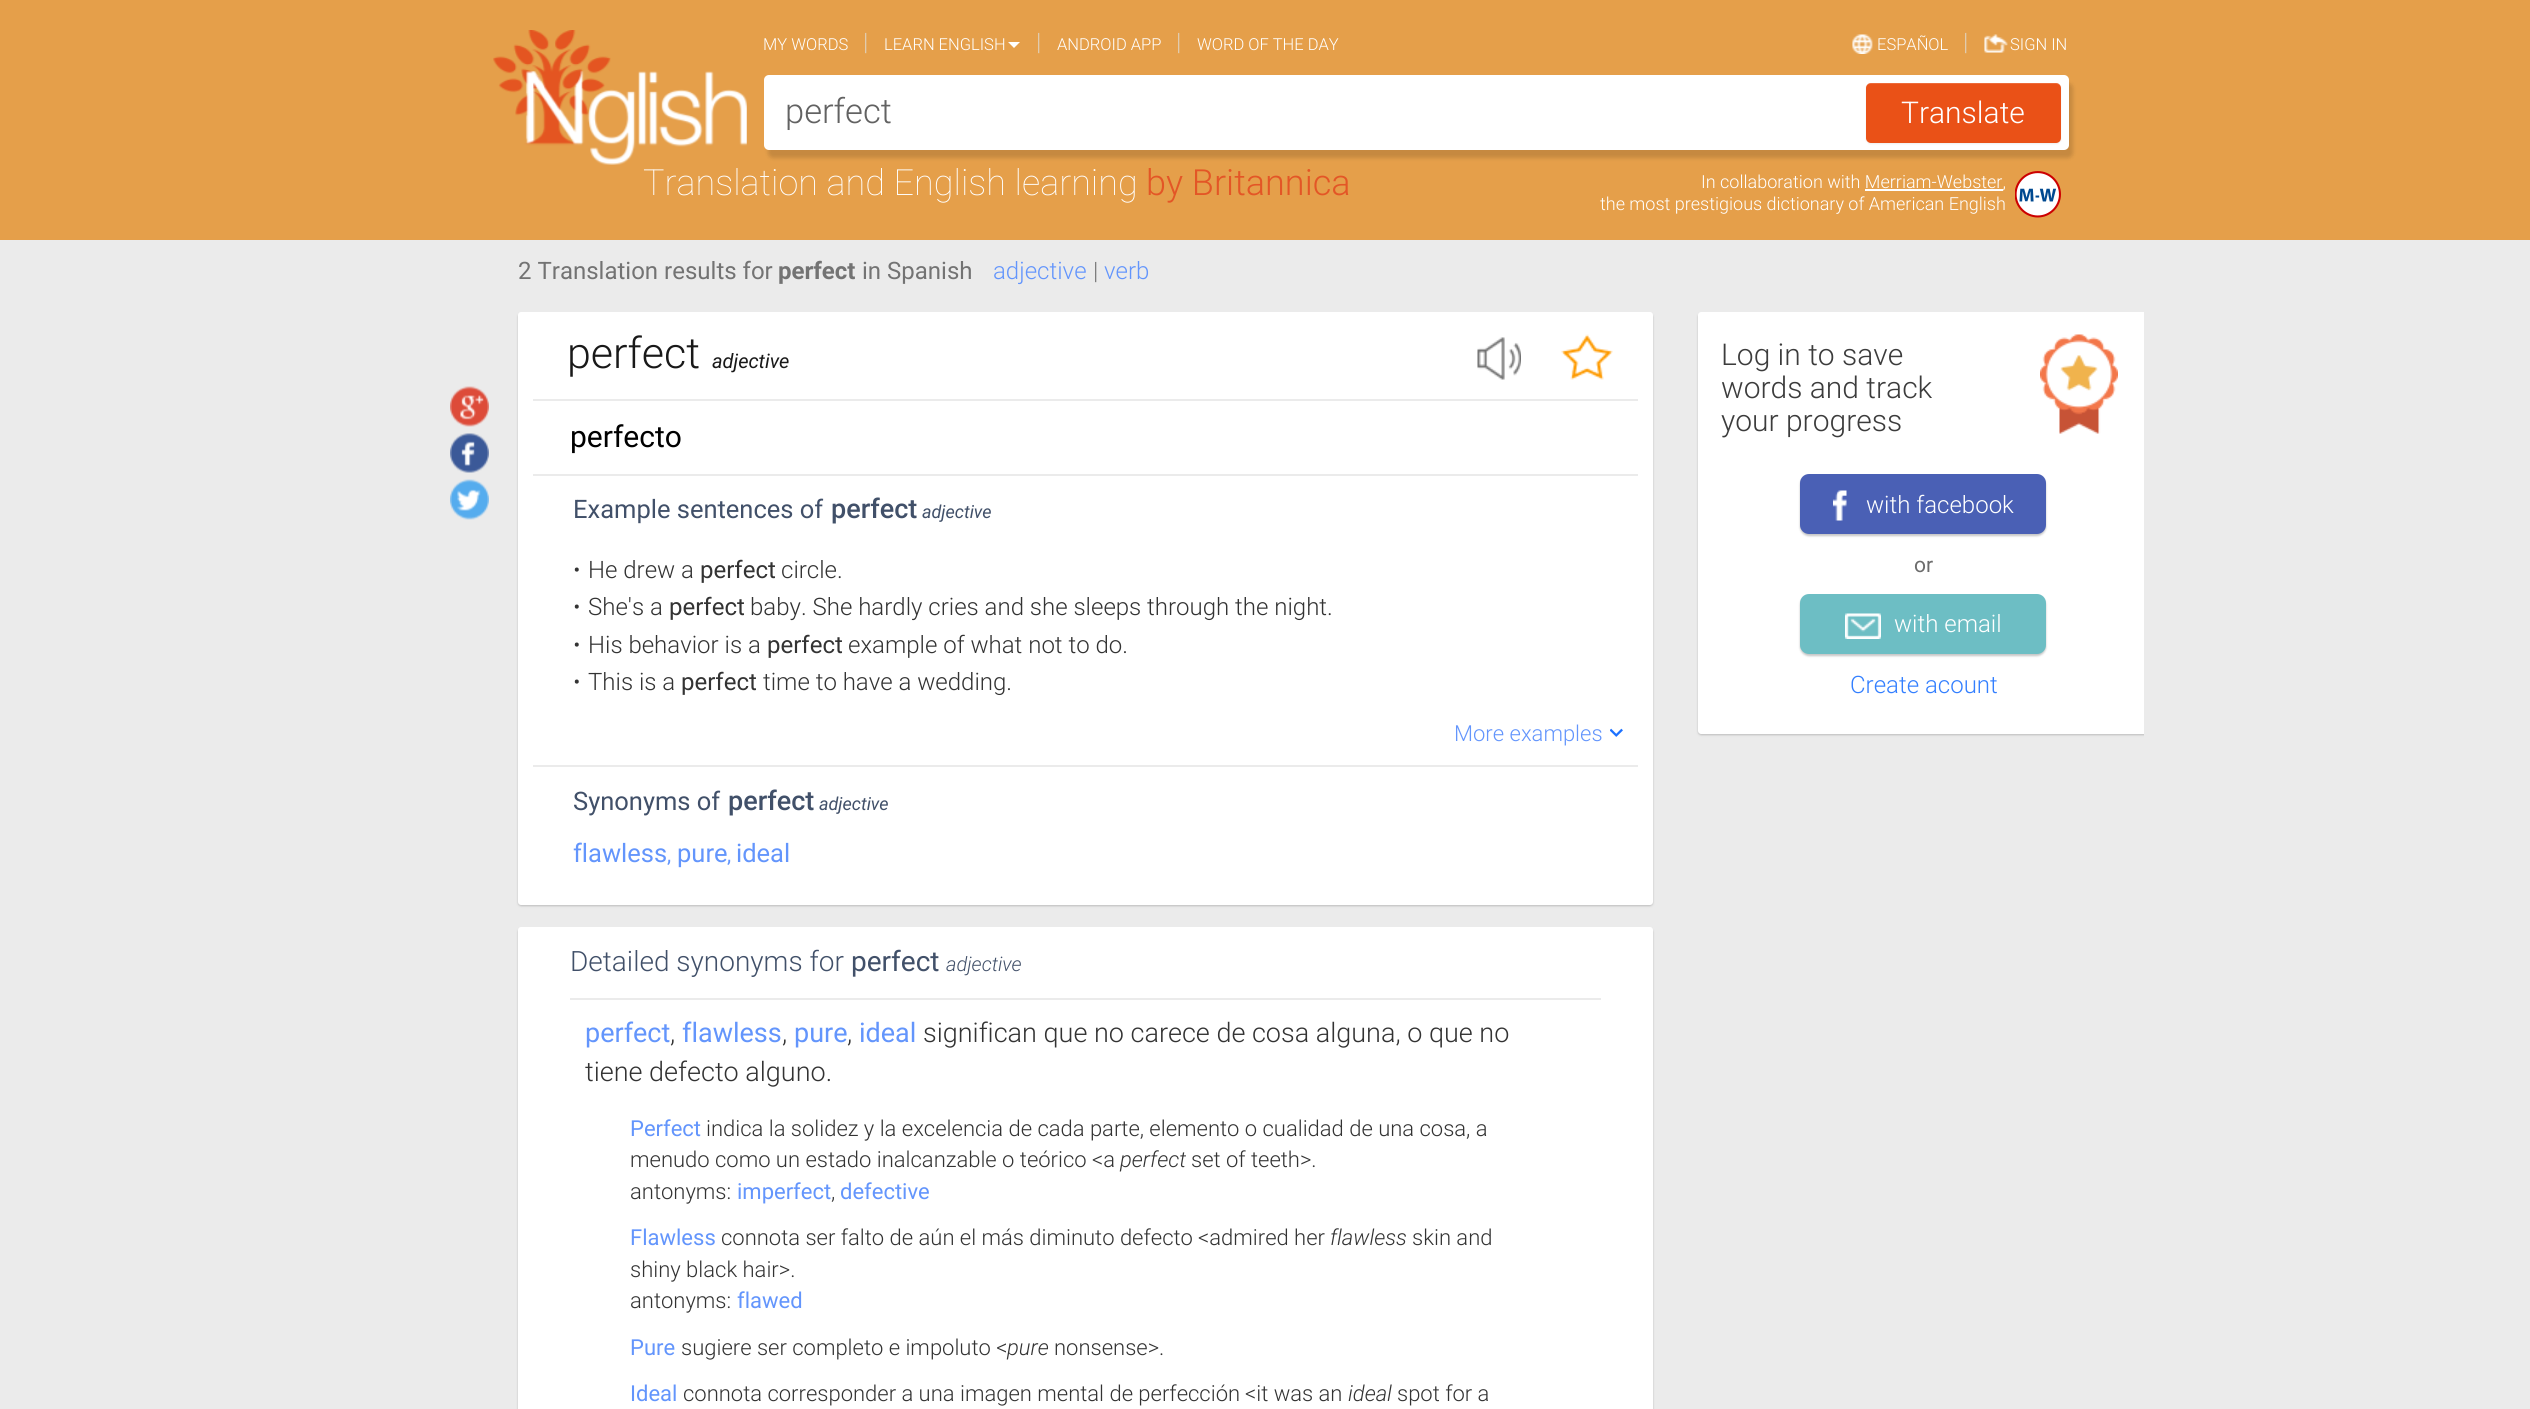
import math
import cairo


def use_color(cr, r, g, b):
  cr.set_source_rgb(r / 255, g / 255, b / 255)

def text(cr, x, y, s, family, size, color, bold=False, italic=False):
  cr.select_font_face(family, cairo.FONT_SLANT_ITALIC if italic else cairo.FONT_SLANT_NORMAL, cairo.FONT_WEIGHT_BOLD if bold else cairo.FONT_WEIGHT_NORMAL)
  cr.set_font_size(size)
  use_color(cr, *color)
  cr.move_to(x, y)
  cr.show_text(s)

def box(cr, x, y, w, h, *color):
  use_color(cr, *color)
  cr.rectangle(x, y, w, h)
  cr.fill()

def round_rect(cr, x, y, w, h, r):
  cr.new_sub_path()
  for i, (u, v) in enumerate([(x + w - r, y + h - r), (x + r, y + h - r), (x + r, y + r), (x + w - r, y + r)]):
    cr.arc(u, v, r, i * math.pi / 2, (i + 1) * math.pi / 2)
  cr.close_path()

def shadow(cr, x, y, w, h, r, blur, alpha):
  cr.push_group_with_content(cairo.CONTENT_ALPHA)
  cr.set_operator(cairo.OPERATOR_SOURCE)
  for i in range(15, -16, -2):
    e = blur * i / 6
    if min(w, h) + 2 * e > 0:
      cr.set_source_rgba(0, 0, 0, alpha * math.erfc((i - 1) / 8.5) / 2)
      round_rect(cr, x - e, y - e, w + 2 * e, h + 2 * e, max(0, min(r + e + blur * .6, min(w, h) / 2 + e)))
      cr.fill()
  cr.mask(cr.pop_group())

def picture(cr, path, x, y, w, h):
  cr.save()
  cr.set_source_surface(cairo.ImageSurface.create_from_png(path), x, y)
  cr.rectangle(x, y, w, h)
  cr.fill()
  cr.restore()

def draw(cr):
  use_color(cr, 235, 235, 235)
  cr.paint()
  box(cr, 0, 0, 2530, 240, 229, 159, 74)
  picture(cr, "img_01.png", 493, 30, 254, 135)
  use_color(cr, 255, 255, 255)
  cr.new_path()
  cr.move_to(1008, 42)
  cr.line_to(1020, 42)
  cr.line_to(1014, 48)
  cr.close_path()
  cr.fill()
  picture(cr, "img_02.png", 1852, 34, 21, 20)
  picture(cr, "img_03.png", 1984, 34, 24, 19)
  use_color(cr, 0, 0, 0)
  shadow(cr, 768, 83, 1305, 75, 5, 2, 0.14)
  use_color(cr, 255, 255, 255)
  round_rect(cr, 764, 75, 1305, 75, 5)
  cr.fill()
  use_color(cr, 0, 0, 0)
  shadow(cr, 1866, 84, 195, 60, 5, 1, 0.07)
  use_color(cr, 234, 81, 23)
  round_rect(cr, 1866, 83, 195, 60, 5)
  cr.fill()
  cr.set_source_rgba(1, 1, 1, 0.15)
  cr.new_path()
  cr.move_to(1870, 84)
  cr.line_to(2056, 84)
  cr.curve_to(2059, 84, 2061, 86, 2061, 88)
  cr.curve_to(2061, 85, 2059, 83, 2056, 83)
  cr.line_to(1871, 83)
  cr.curve_to(1868, 83, 1866, 85, 1866, 88)
  cr.curve_to(1866, 86, 1868, 84, 1870, 84)
  cr.close_path()
  cr.fill()
  box(cr, 1865, 189, 138, 2, 255, 255, 255)
  picture(cr, "img_04.png", 2015, 171, 46, 47)
  picture(cr, "img_05.png", 450, 386, 39, 41)
  picture(cr, "img_06.png", 450, 433, 39, 40)
  picture(cr, "img_07.png", 450, 479, 39, 41)
  use_color(cr, 151, 151, 151)
  shadow(cr, 518, 314, 1135, 592, 3, 1, 0.55)
  use_color(cr, 255, 255, 255)
  round_rect(cr, 518, 312, 1135, 593, 3)
  cr.fill()
  picture(cr, "img_08.png", 1477, 337, 44, 43)
  picture(cr, "img_09.png", 1561, 334, 52, 46)
  box(cr, 533, 399, 1105, 2, 235, 235, 235)
  box(cr, 533, 474, 1105, 2, 235, 235, 235)
  picture(cr, "img_10.png", 1610, 728, 13, 9)
  box(cr, 533, 765, 1105, 2, 235, 235, 235)
  use_color(cr, 151, 151, 151)
  shadow(cr, 518, 929, 1135, 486, 3, 1, 0.55)
  use_color(cr, 255, 255, 255)
  round_rect(cr, 518, 927, 1135, 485, 3)
  cr.fill()
  box(cr, 570, 998, 1031, 2, 235, 235, 235)
  cr.save()
  cr.rectangle(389, 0, 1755, 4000)
  cr.clip()
  use_color(cr, 151, 151, 151)
  shadow(cr, 1698, 314, 450, 421, 3, 1, 0.55)
  cr.restore()
  use_color(cr, 255, 255, 255)
  cr.new_path()
  cr.move_to(1701, 312)
  cr.line_to(2144, 312)
  cr.line_to(2144, 734)
  cr.line_to(1701, 734)
  cr.curve_to(1699.5, 734, 1698, 732.5, 1698, 731)
  cr.line_to(1698, 315)
  cr.curve_to(1698, 313.5, 1699.5, 312, 1701, 312)
  cr.close_path()
  cr.fill()
  picture(cr, "img_11.png", 2040, 334, 78, 100)
  use_color(cr, 151, 151, 151)
  shadow(cr, 1800, 476, 246, 60, 9, 1, 0.55)
  use_color(cr, 74, 96, 181)
  round_rect(cr, 1800, 474, 246, 60, 9)
  cr.fill()
  picture(cr, "img_12.png", 1833, 490, 14, 31)
  use_color(cr, 151, 151, 151)
  shadow(cr, 1800, 596, 246, 60, 9, 1, 0.55)
  use_color(cr, 109, 190, 196)
  round_rect(cr, 1800, 594, 246, 60, 9)
  cr.fill()
  picture(cr, "img_13.png", 1845, 613, 36, 26)
  text(cr, 763, 50, "MY WORDS", "Roboto Light", 16.5, (255, 255, 255))
  text(cr, 863, 50, "|", "Roboto Light", 24, (224, 208, 184))
  text(cr, 884, 50, "LEARN ENGLISH", "Roboto Light", 16.5, (255, 255, 255))
  text(cr, 1036, 50, "|", "Roboto Light", 24, (224, 208, 184))
  text(cr, 1057, 50, "ANDROID APP", "Roboto Light", 16.5, (255, 255, 255))
  text(cr, 1176, 50, "|", "Roboto Light", 24, (224, 208, 184))
  text(cr, 1197, 50, "WORD OF THE DAY", "Roboto Light", 16.5, (255, 255, 255))
  text(cr, 1877, 50, "ESPAÑOL", "Roboto Light", 16.5, (255, 255, 255))
  text(cr, 1963, 50, "|", "Roboto Light", 24, (224, 208, 184))
  text(cr, 2010, 50, "SIGN IN", "Roboto Light", 16.5, (255, 255, 255))
  text(cr, 785, 123, "perfect", "Roboto Light", 34.5, (98, 98, 98))
  text(cr, 1901, 123, "Translate", "Roboto Light", 30, (255, 255, 255))
  text(cr, 643, 195, "Translation and English learning", "Roboto Thin", 36, (255, 255, 255))
  text(cr, 1146, 195, "by Britannica", "Roboto Light", 36, (227, 86, 38))
  text(cr, 1701, 188, "In collaboration with Merriam-Webster,", "Roboto Light", 18, (255, 255, 255))
  text(cr, 1600, 210, "the most prestigious dictionary of American English", "Roboto Light", 18, (255, 255, 255))
  text(cr, 518, 279, "2 Translation results for", "Roboto", 24, (115, 115, 115))
  text(cr, 778, 279, "perfect", "Roboto", 24, (115, 115, 115), bold=True)
  text(cr, 862, 279, "in Spanish", "Roboto", 24, (115, 115, 115))
  text(cr, 993, 279, "adjective", "Roboto Light", 24, (99, 149, 252))
  text(cr, 1093, 279, "|", "Roboto Light", 24, (115, 115, 115))
  text(cr, 1104, 279, "verb", "Roboto Light", 24, (99, 149, 252))
  text(cr, 567, 368, "perfect", "Roboto Light", 43, (25, 25, 25))
  text(cr, 712, 368, "adjective", "Roboto", 20, (25, 25, 25), italic=True)
  text(cr, 570, 447, "perfecto", "Roboto", 30, (0, 0, 0))
  text(cr, 573, 518, "Example sentences of", "Roboto", 25.5, (65, 80, 105))
  text(cr, 831, 518, "perfect", "Roboto Medium", 27, (65, 80, 105))
  text(cr, 922, 518, "adjective", "Roboto", 18, (65, 80, 105), italic=True)
  text(cr, 573, 578, "•", "Roboto Thin", 24, (51, 51, 51))
  text(cr, 588, 578, "He drew a", "Roboto Light", 24, (51, 51, 51))
  text(cr, 700, 578, "perfect", "Roboto", 24, (51, 51, 51))
  text(cr, 781, 578, "circle.", "Roboto Light", 24, (51, 51, 51))
  text(cr, 573, 615, "•", "Roboto Thin", 24, (51, 51, 51))
  text(cr, 588, 615, "She's a", "Roboto Light", 24, (51, 51, 51))
  text(cr, 669, 615, "perfect", "Roboto", 24, (51, 51, 51))
  text(cr, 750, 615, "baby. She hardly cries and she sleeps through the night.", "Roboto Light", 24, (51, 51, 51))
  text(cr, 573, 653, "•", "Roboto Thin", 24, (51, 51, 51))
  text(cr, 588, 653, "His behavior is a", "Roboto Light", 24, (51, 51, 51))
  text(cr, 767, 653, "perfect", "Roboto", 24, (51, 51, 51))
  text(cr, 848, 653, "example of what not to do.", "Roboto Light", 24, (51, 51, 51))
  text(cr, 573, 690, "•", "Roboto Thin", 24, (51, 51, 51))
  text(cr, 588, 690, "This is a", "Roboto Light", 24, (51, 51, 51))
  text(cr, 681, 690, "perfect", "Roboto", 24, (51, 51, 51))
  text(cr, 763, 690, "time to have a wedding.", "Roboto Light", 24, (51, 51, 51))
  text(cr, 1454, 741, "More examples", "Roboto Light", 22, (99, 149, 252))
  text(cr, 573, 810, "Synonyms of", "Roboto", 25.5, (65, 80, 105))
  text(cr, 728, 810, "perfect", "Roboto Medium", 27, (65, 80, 105))
  text(cr, 819, 810, "adjective", "Roboto", 18, (65, 80, 105), italic=True)
  text(cr, 573, 862, "flawless", "Roboto", 25.5, (99, 149, 252))
  text(cr, 667, 862, ",", "Roboto", 21, (99, 149, 252))
  text(cr, 677, 862, "pure", "Roboto", 25.5, (99, 149, 252))
  text(cr, 727, 862, ",", "Roboto", 21, (99, 149, 252))
  text(cr, 736, 862, "ideal", "Roboto", 25.5, (99, 149, 252))
  text(cr, 570, 971, "Detailed synonyms for", "Roboto Light", 28, (65, 80, 105))
  text(cr, 851, 971, "perfect", "Roboto", 28, (65, 80, 105))
  text(cr, 946, 971, "adjective", "Roboto Light", 20, (65, 80, 105), italic=True)
  text(cr, 585, 1042, "perfect", "Roboto", 27, (99, 149, 252))
  text(cr, 670, 1042, ",", "Roboto Light", 27, (51, 51, 51))
  text(cr, 682, 1042, "flawless", "Roboto", 27, (99, 149, 252))
  text(cr, 782, 1042, ",", "Roboto Light", 27, (51, 51, 51))
  text(cr, 794, 1042, "pure", "Roboto", 27, (99, 149, 252))
  text(cr, 847, 1042, ",", "Roboto Light", 27, (51, 51, 51))
  text(cr, 859, 1042, "ideal", "Roboto", 27, (99, 149, 252))
  text(cr, 923, 1042, "significan que no carece de cosa alguna, o que no", "Roboto Light", 27, (51, 51, 51))
  text(cr, 585, 1081, "tiene defecto alguno.", "Roboto Light", 27, (51, 51, 51))
  text(cr, 630, 1136, "Perfect", "Roboto", 22, (99, 149, 252))
  text(cr, 706, 1136, "indica la solidez y la excelencia de cada parte, elemento o cualidad de una cosa, a", "Roboto Light", 22, (51, 51, 51))
  text(cr, 630, 1167, "menudo como un estado inalcanzable o teórico", "Roboto Light", 22, (51, 51, 51))
  text(cr, 1092, 1167, "<a", "Roboto Light", 22, (51, 51, 51))
  text(cr, 1120, 1167, "perfect", "Roboto Light", 22, (51, 51, 51), italic=True)
  text(cr, 1191, 1167, "set of teeth>.", "Roboto Light", 22, (51, 51, 51))
  text(cr, 630, 1199, "antonyms:", "Roboto Light", 22, (51, 51, 51))
  text(cr, 737, 1199, "imperfect", "Roboto", 22, (99, 149, 252))
  text(cr, 831, 1199, ",", "Roboto Light", 22, (51, 51, 51))
  text(cr, 840, 1199, "defective", "Roboto", 22, (99, 149, 252))
  text(cr, 630, 1245, "Flawless", "Roboto", 22, (99, 149, 252))
  text(cr, 721, 1245, "connota ser falto de aún el más diminuto defecto", "Roboto Light", 22, (51, 51, 51))
  text(cr, 1198, 1245, "<admired her", "Roboto Light", 22, (51, 51, 51))
  text(cr, 1330, 1245, "flawless", "Roboto Light", 22, (51, 51, 51), italic=True)
  text(cr, 1412, 1245, "skin and", "Roboto Light", 22, (51, 51, 51))
  text(cr, 630, 1277, "shiny black hair>.", "Roboto Light", 22, (51, 51, 51))
  text(cr, 630, 1308, "antonyms:", "Roboto Light", 22, (51, 51, 51))
  text(cr, 737, 1308, "flawed", "Roboto", 22, (99, 149, 252))
  text(cr, 630, 1355, "Pure", "Roboto", 22, (99, 149, 252))
  text(cr, 681, 1355, "sugiere ser completo e impoluto <", "Roboto Light", 22, (51, 51, 51))
  text(cr, 1007, 1355, "pure", "Roboto Light", 22, (51, 51, 51), italic=True)
  text(cr, 1054, 1355, "nonsense>.", "Roboto Light", 22, (51, 51, 51))
  text(cr, 630, 1401, "Ideal", "Roboto", 22, (99, 149, 252))
  text(cr, 683, 1401, "connota corresponder a una imagen mental de perfección", "Roboto Light", 22, (51, 51, 51))
  text(cr, 1245, 1401, "<it was an", "Roboto Light", 22, (51, 51, 51))
  text(cr, 1348, 1401, "ideal", "Roboto Light", 22, (51, 51, 51), italic=True)
  text(cr, 1397, 1401, "spot for a", "Roboto Light", 22, (51, 51, 51))
  text(cr, 1721, 365, "Log in to save", "Roboto Light", 30, (60, 60, 60))
  text(cr, 1721, 398, "words and track", "Roboto Light", 30, (60, 60, 60))
  text(cr, 1721, 431, "your progress", "Roboto Light", 30, (60, 60, 60))
  text(cr, 1866, 513, "with facebook", "Roboto Light", 24, (255, 255, 255))
  text(cr, 1914, 572, "or", "Roboto", 21, (108, 108, 108))
  text(cr, 1894, 632, "with email", "Roboto Light", 24, (255, 255, 255))
  text(cr, 1850, 693, "Create acount", "Roboto Light", 24, (51, 127, 255))


surface = cairo.ImageSurface(cairo.FORMAT_RGB24, 2530, 1409)
cr = cairo.Context(surface)
options = cairo.FontOptions()
options.set_hint_metrics(cairo.HINT_METRICS_OFF)
options.set_hint_style(cairo.HINT_STYLE_NONE)
cr.set_font_options(options)
cr.set_miter_limit(4)
draw(cr)
surface.write_to_png("out.png")
